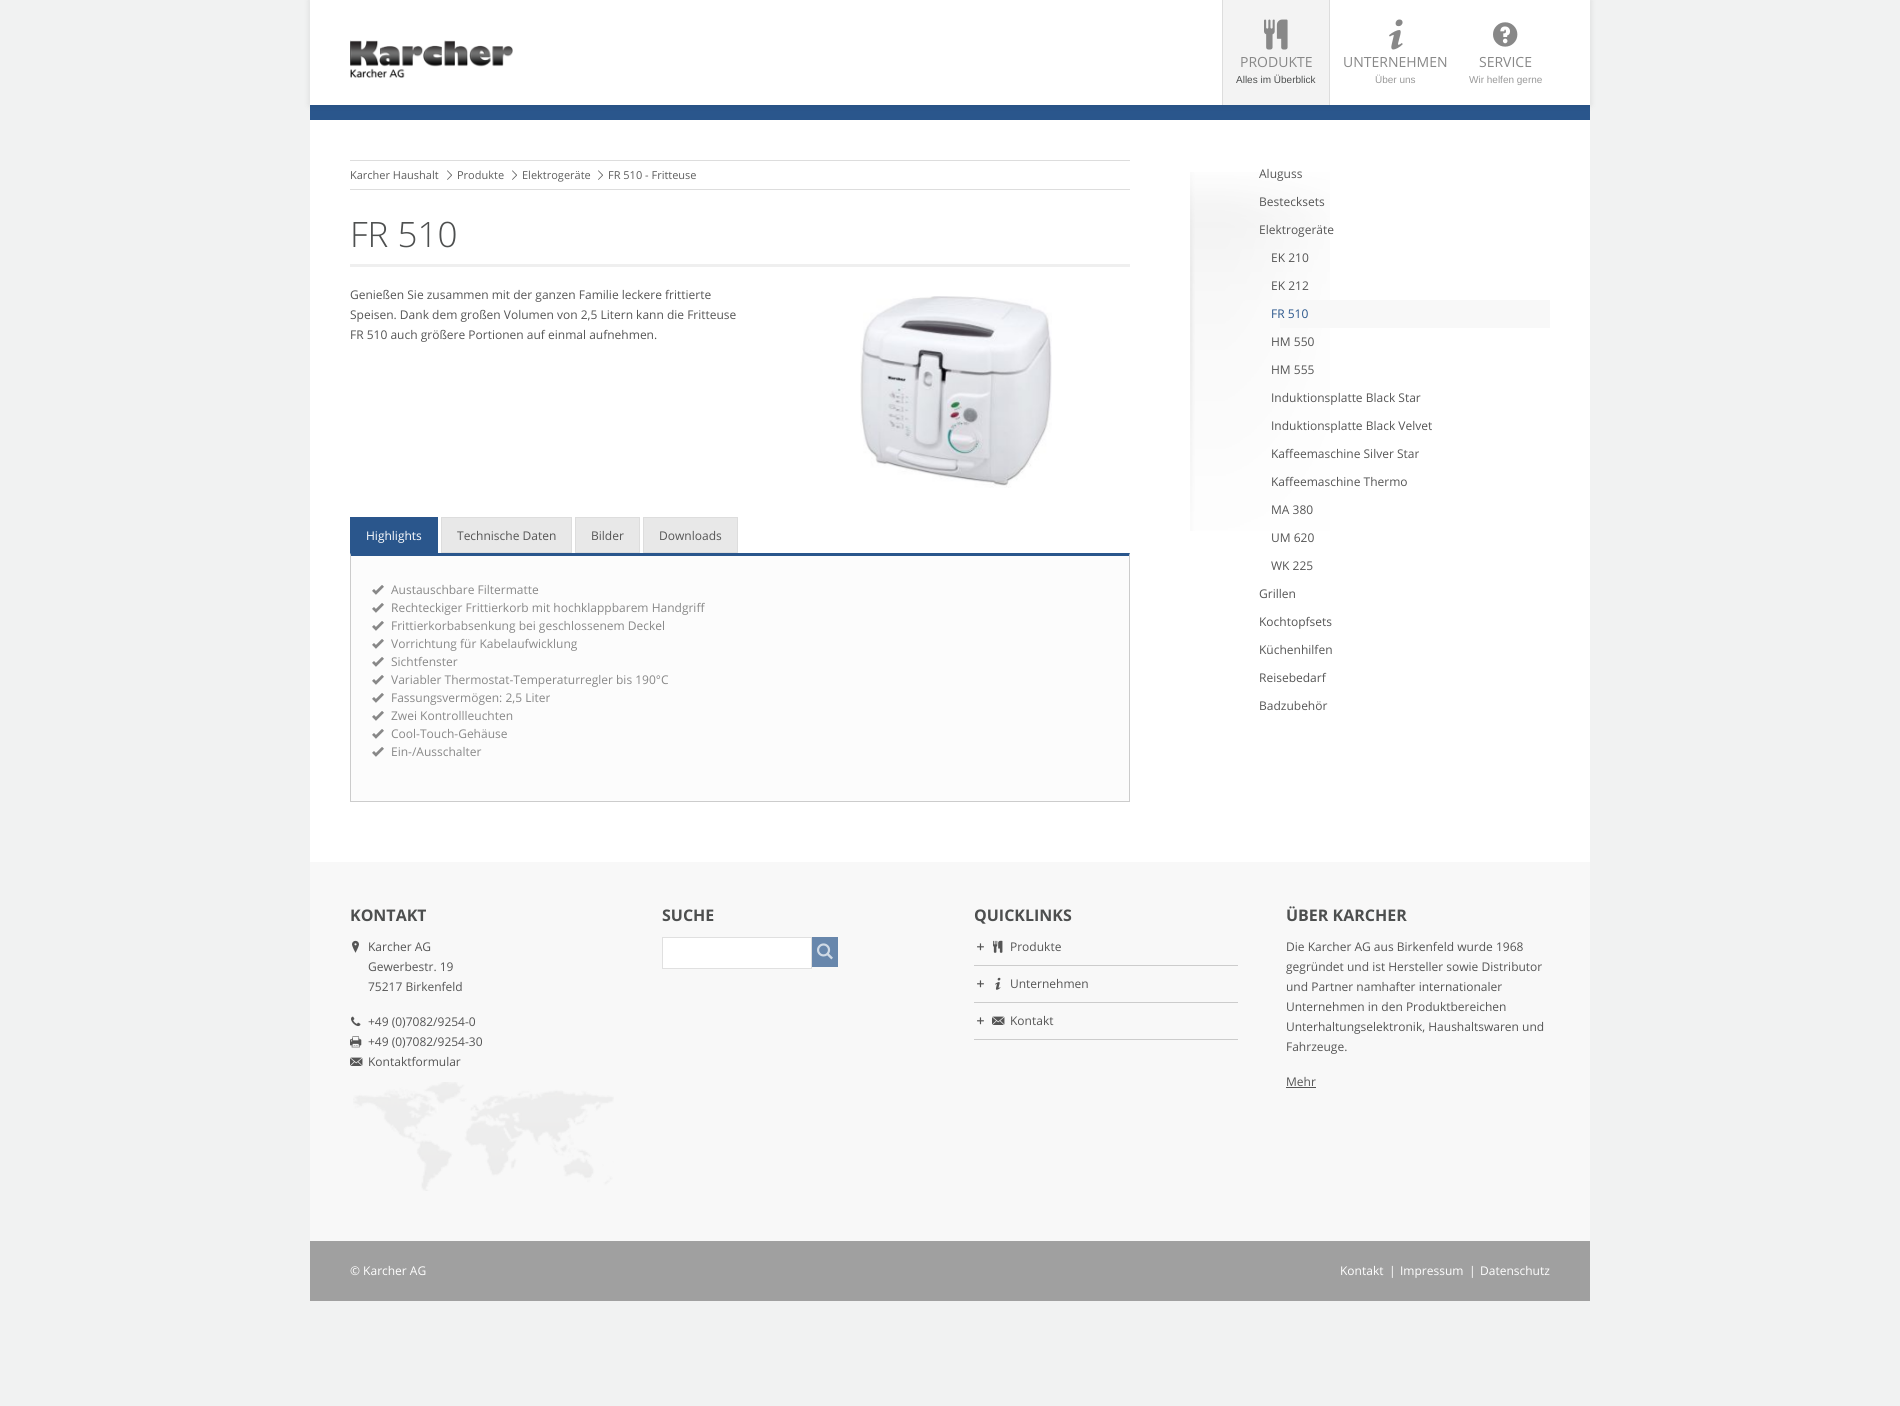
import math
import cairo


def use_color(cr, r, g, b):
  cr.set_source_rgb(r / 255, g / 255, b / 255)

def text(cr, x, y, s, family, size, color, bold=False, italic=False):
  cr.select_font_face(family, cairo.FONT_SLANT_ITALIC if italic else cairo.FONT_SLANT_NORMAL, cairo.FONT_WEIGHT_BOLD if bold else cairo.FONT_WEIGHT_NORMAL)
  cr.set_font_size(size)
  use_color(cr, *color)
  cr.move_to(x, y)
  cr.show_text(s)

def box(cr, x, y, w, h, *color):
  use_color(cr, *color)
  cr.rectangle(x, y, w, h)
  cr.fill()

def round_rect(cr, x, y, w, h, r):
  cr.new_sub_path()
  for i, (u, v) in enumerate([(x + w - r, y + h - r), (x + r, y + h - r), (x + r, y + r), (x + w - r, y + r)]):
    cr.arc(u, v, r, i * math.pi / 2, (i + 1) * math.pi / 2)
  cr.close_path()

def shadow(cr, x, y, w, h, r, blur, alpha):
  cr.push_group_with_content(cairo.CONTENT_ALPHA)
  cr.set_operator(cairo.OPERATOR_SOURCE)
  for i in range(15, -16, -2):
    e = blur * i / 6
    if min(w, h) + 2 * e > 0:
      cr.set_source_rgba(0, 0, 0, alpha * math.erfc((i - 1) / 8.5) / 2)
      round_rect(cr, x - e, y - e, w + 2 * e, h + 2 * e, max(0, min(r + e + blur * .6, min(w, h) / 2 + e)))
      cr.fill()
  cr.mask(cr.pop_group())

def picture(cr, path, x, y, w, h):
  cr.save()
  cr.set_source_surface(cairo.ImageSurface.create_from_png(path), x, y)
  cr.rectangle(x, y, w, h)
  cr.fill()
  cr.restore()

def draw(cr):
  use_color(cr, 241, 242, 242)
  cr.paint()
  box(cr, 310, 105, 1280, 15, 42, 86, 140)
  use_color(cr, 0, 0, 0)
  shadow(cr, 310, 0, 1280, 105, 0, 3.5, 0.11)
  box(cr, 310, 0, 1280, 105, 255, 255, 255)
  picture(cr, "img_01.png", 350, 40, 163, 38)
  box(cr, 1223, 0, 106, 105, 243, 243, 243)
  box(cr, 1329, 0, 1, 105, 221, 221, 221)
  box(cr, 1222, 0, 1, 105, 221, 221, 221)
  picture(cr, "img_02.png", 1264, 19, 24, 31)
  picture(cr, "img_03.png", 1389, 19, 14, 31)
  picture(cr, "img_04.png", 1493, 22, 25, 25)
  box(cr, 310, 120, 1280, 742, 255, 255, 255)
  box(cr, 350, 160, 780, 1, 221, 221, 221)
  box(cr, 350, 189, 780, 1, 221, 221, 221)
  picture(cr, "img_05.png", 447, 170, 5, 10)
  picture(cr, "img_05.png", 512, 170, 5, 10)
  picture(cr, "img_05.png", 598, 170, 5, 10)
  box(cr, 350, 264, 780, 3, 239, 239, 239)
  picture(cr, "img_06.png", 860, 296, 192, 192)
  box(cr, 350, 517, 88, 36, 42, 86, 140)
  use_color(cr, 232, 232, 232)
  cr.rectangle(441.5, 517.5, 130, 35)
  cr.fill_preserve()
  use_color(cr, 221, 221, 221)
  cr.set_line_width(1)
  cr.stroke()
  use_color(cr, 232, 232, 232)
  cr.rectangle(575.5, 517.5, 64, 35)
  cr.fill_preserve()
  use_color(cr, 221, 221, 221)
  cr.stroke()
  use_color(cr, 232, 232, 232)
  cr.rectangle(643.5, 517.5, 94, 35)
  cr.fill_preserve()
  use_color(cr, 221, 221, 221)
  cr.stroke()
  box(cr, 351, 556, 778, 245, 252, 252, 252)
  use_color(cr, 42, 86, 140)
  cr.new_path()
  cr.move_to(350, 553)
  cr.line_to(1130, 553)
  cr.line_to(1129, 556)
  cr.line_to(351, 556)
  cr.close_path()
  cr.fill()
  use_color(cr, 204, 204, 204)
  cr.new_path()
  cr.move_to(1130, 553)
  cr.line_to(1130, 802)
  cr.line_to(1129, 801)
  cr.line_to(1129, 556)
  cr.close_path()
  cr.fill()
  box(cr, 350, 801, 780, 1, 204, 204, 204)
  cr.new_path()
  cr.move_to(350, 802)
  cr.line_to(350, 553)
  cr.line_to(351, 556)
  cr.line_to(351, 801)
  cr.close_path()
  cr.fill()
  picture(cr, "img_07.png", 372, 585, 12, 10)
  picture(cr, "img_07.png", 372, 603, 12, 10)
  picture(cr, "img_07.png", 372, 621, 12, 10)
  picture(cr, "img_07.png", 372, 639, 12, 10)
  picture(cr, "img_07.png", 372, 657, 12, 10)
  picture(cr, "img_07.png", 372, 675, 12, 10)
  picture(cr, "img_07.png", 372, 693, 12, 10)
  picture(cr, "img_07.png", 372, 711, 12, 10)
  picture(cr, "img_07.png", 372, 729, 12, 10)
  picture(cr, "img_07.png", 372, 747, 12, 10)
  picture(cr, "img_08.png", 1190, 172, 140, 359)
  box(cr, 1280, 300, 270, 28, 248, 248, 248)
  box(cr, 310, 862, 1280, 379, 248, 248, 248)
  picture(cr, "img_09.png", 352, 940, 7, 13)
  picture(cr, "img_10.png", 351, 1016, 10, 11)
  picture(cr, "img_11.png", 350, 1036, 12, 12)
  picture(cr, "img_12.png", 350, 1057, 13, 9)
  picture(cr, "img_13.png", 353, 1082, 261, 109)
  use_color(cr, 255, 255, 255)
  cr.rectangle(662.5, 937.5, 149, 31)
  cr.fill_preserve()
  use_color(cr, 224, 224, 224)
  cr.stroke()
  box(cr, 812, 937, 26, 30, 104, 135, 172)
  picture(cr, "img_14.png", 817, 943, 16, 17)
  box(cr, 974, 965, 264, 1, 204, 204, 204)
  picture(cr, "img_15.png", 977, 943, 7, 8)
  picture(cr, "img_16.png", 993, 940, 10, 13)
  box(cr, 974, 1002, 264, 1, 204, 204, 204)
  picture(cr, "img_15.png", 977, 980, 7, 8)
  picture(cr, "img_17.png", 995, 977, 6, 13)
  box(cr, 974, 1039, 264, 1, 204, 204, 204)
  picture(cr, "img_15.png", 977, 1017, 7, 8)
  picture(cr, "img_12.png", 992, 1016, 13, 9)
  box(cr, 1286, 1087, 30, 1, 85, 85, 85)
  box(cr, 310, 1241, 1280, 60, 160, 160, 160)
  text(cr, 1240, 67, "PRODUKTE", "Open Sans", 14, (136, 136, 136))
  text(cr, 1236, 83, "Alles im Überblick", "Liberation Sans", 10, (77, 79, 79))
  text(cr, 1343, 67, "UNTERNEHMEN", "Open Sans", 14, (136, 136, 136))
  text(cr, 1375, 83, "Über uns", "Liberation Sans", 10, (153, 153, 153))
  text(cr, 1479, 67, "SERVICE", "Open Sans", 14, (136, 136, 136))
  text(cr, 1469, 83, "Wir helfen gerne", "Liberation Sans", 10, (153, 153, 153))
  text(cr, 350, 179, "Karcher Haushalt", "Open Sans", 11, (94, 94, 94))
  text(cr, 457, 179, "Produkte", "Open Sans", 11, (94, 94, 94))
  text(cr, 522, 179, "Elektrogeräte", "Open Sans", 11, (94, 94, 94))
  text(cr, 608, 179, "FR 510 - Fritteuse", "Open Sans", 11, (94, 94, 94))
  text(cr, 350, 247, "FR 510", "Open Sans Light", 35, (77, 79, 79))
  text(cr, 350, 299, "Genießen Sie zusammen mit der ganzen Familie leckere frittierte", "Open Sans", 12, (85, 85, 85))
  text(cr, 350, 319, "Speisen. Dank dem großen Volumen von 2,5 Litern kann die Fritteuse", "Open Sans", 12, (85, 85, 85))
  text(cr, 350, 339, "FR 510 auch größere Portionen auf einmal aufnehmen.", "Open Sans", 12, (85, 85, 85))
  text(cr, 366, 540, "Highlights", "Open Sans", 12, (255, 255, 255))
  text(cr, 457, 540, "Technische Daten", "Open Sans", 12, (85, 85, 85))
  text(cr, 591, 540, "Bilder", "Open Sans", 12, (85, 85, 85))
  text(cr, 659, 540, "Downloads", "Open Sans", 12, (85, 85, 85))
  text(cr, 391, 594, "Austauschbare Filtermatte", "Open Sans", 12, (136, 136, 136))
  text(cr, 391, 612, "Rechteckiger Frittierkorb mit hochklappbarem Handgriff", "Open Sans", 12, (136, 136, 136))
  text(cr, 391, 630, "Frittierkorbabsenkung bei geschlossenem Deckel", "Open Sans", 12, (136, 136, 136))
  text(cr, 391, 648, "Vorrichtung für Kabelaufwicklung", "Open Sans", 12, (136, 136, 136))
  text(cr, 391, 666, "Sichtfenster", "Open Sans", 12, (136, 136, 136))
  text(cr, 391, 684, "Variabler Thermostat-Temperaturregler bis 190°C", "Open Sans", 12, (136, 136, 136))
  text(cr, 391, 702, "Fassungsvermögen: 2,5 Liter", "Open Sans", 12, (136, 136, 136))
  text(cr, 391, 720, "Zwei Kontrollleuchten", "Open Sans", 12, (136, 136, 136))
  text(cr, 391, 738, "Cool-Touch-Gehäuse", "Open Sans", 12, (136, 136, 136))
  text(cr, 391, 756, "Ein-/Ausschalter", "Open Sans", 12, (136, 136, 136))
  text(cr, 1259, 178, "Aluguss", "Open Sans", 12, (85, 85, 85))
  text(cr, 1259, 206, "Bestecksets", "Open Sans", 12, (85, 85, 85))
  text(cr, 1259, 234, "Elektrogeräte", "Open Sans", 12, (85, 85, 85))
  text(cr, 1271, 262, "EK 210", "Open Sans", 12, (85, 85, 85))
  text(cr, 1271, 290, "EK 212", "Open Sans", 12, (85, 85, 85))
  text(cr, 1271, 318, "FR 510", "Open Sans", 12, (42, 86, 140))
  text(cr, 1271, 346, "HM 550", "Open Sans", 12, (85, 85, 85))
  text(cr, 1271, 374, "HM 555", "Open Sans", 12, (85, 85, 85))
  text(cr, 1271, 402, "Induktionsplatte Black Star", "Open Sans", 12, (85, 85, 85))
  text(cr, 1271, 430, "Induktionsplatte Black Velvet", "Open Sans", 12, (85, 85, 85))
  text(cr, 1271, 458, "Kaffeemaschine Silver Star", "Open Sans", 12, (85, 85, 85))
  text(cr, 1271, 486, "Kaffeemaschine Thermo", "Open Sans", 12, (85, 85, 85))
  text(cr, 1271, 514, "MA 380", "Open Sans", 12, (85, 85, 85))
  text(cr, 1271, 542, "UM 620", "Open Sans", 12, (85, 85, 85))
  text(cr, 1271, 570, "WK 225", "Open Sans", 12, (85, 85, 85))
  text(cr, 1259, 598, "Grillen", "Open Sans", 12, (85, 85, 85))
  text(cr, 1259, 626, "Kochtopfsets", "Open Sans", 12, (85, 85, 85))
  text(cr, 1259, 654, "Küchenhilfen", "Open Sans", 12, (85, 85, 85))
  text(cr, 1259, 682, "Reisebedarf", "Open Sans", 12, (85, 85, 85))
  text(cr, 1259, 710, "Badzubehör", "Open Sans", 12, (85, 85, 85))
  text(cr, 350, 921, "KONTAKT", "Open Sans", 16, (77, 79, 79), bold=True)
  text(cr, 368, 951, "Karcher AG", "Open Sans", 12, (85, 85, 85))
  text(cr, 368, 971, "Gewerbestr. 19", "Open Sans", 12, (85, 85, 85))
  text(cr, 368, 991, "75217 Birkenfeld", "Open Sans", 12, (85, 85, 85))
  text(cr, 368, 1026, "+49 (0)7082/9254-0", "Open Sans", 12, (85, 85, 85))
  text(cr, 368, 1046, "+49 (0)7082/9254-30", "Open Sans", 12, (85, 85, 85))
  text(cr, 368, 1066, "Kontaktformular", "Open Sans", 12, (85, 85, 85))
  text(cr, 662, 921, "SUCHE", "Open Sans", 16, (77, 79, 79), bold=True)
  text(cr, 974, 921, "QUICKLINKS", "Open Sans", 16, (77, 79, 79), bold=True)
  text(cr, 1010, 951, "Produkte", "Open Sans", 12, (85, 85, 85))
  text(cr, 1010, 988, "Unternehmen", "Open Sans", 12, (85, 85, 85))
  text(cr, 1010, 1025, "Kontakt", "Open Sans", 12, (85, 85, 85))
  text(cr, 1286, 921, "ÜBER KARCHER", "Open Sans", 16, (77, 79, 79), bold=True)
  text(cr, 1286, 951, "Die Karcher AG aus Birkenfeld wurde 1968", "Open Sans", 12, (85, 85, 85))
  text(cr, 1286, 971, "gegründet und ist Hersteller sowie Distributor", "Open Sans", 12, (85, 85, 85))
  text(cr, 1286, 991, "und Partner namhafter internationaler", "Open Sans", 12, (85, 85, 85))
  text(cr, 1286, 1011, "Unternehmen in den Produktbereichen", "Open Sans", 12, (85, 85, 85))
  text(cr, 1286, 1031, "Unterhaltungselektronik, Haushaltswaren und", "Open Sans", 12, (85, 85, 85))
  text(cr, 1286, 1051, "Fahrzeuge.", "Open Sans", 12, (85, 85, 85))
  text(cr, 1286, 1086, "Mehr", "Open Sans", 12, (85, 85, 85))
  text(cr, 350, 1275, "© Karcher AG", "Open Sans", 12, (255, 255, 255))
  text(cr, 1340, 1275, "Kontakt", "Open Sans", 12, (255, 255, 255))
  text(cr, 1389, 1275, "|", "Open Sans", 12, (255, 255, 255))
  text(cr, 1400, 1275, "Impressum", "Open Sans", 12, (255, 255, 255))
  text(cr, 1469, 1275, "|", "Open Sans", 12, (255, 255, 255))
  text(cr, 1480, 1275, "Datenschutz", "Open Sans", 12, (255, 255, 255))


surface = cairo.ImageSurface(cairo.FORMAT_RGB24, 1900, 1406)
cr = cairo.Context(surface)
options = cairo.FontOptions()
options.set_hint_metrics(cairo.HINT_METRICS_OFF)
options.set_hint_style(cairo.HINT_STYLE_NONE)
cr.set_font_options(options)
cr.set_miter_limit(4)
draw(cr)
surface.write_to_png("out.png")
